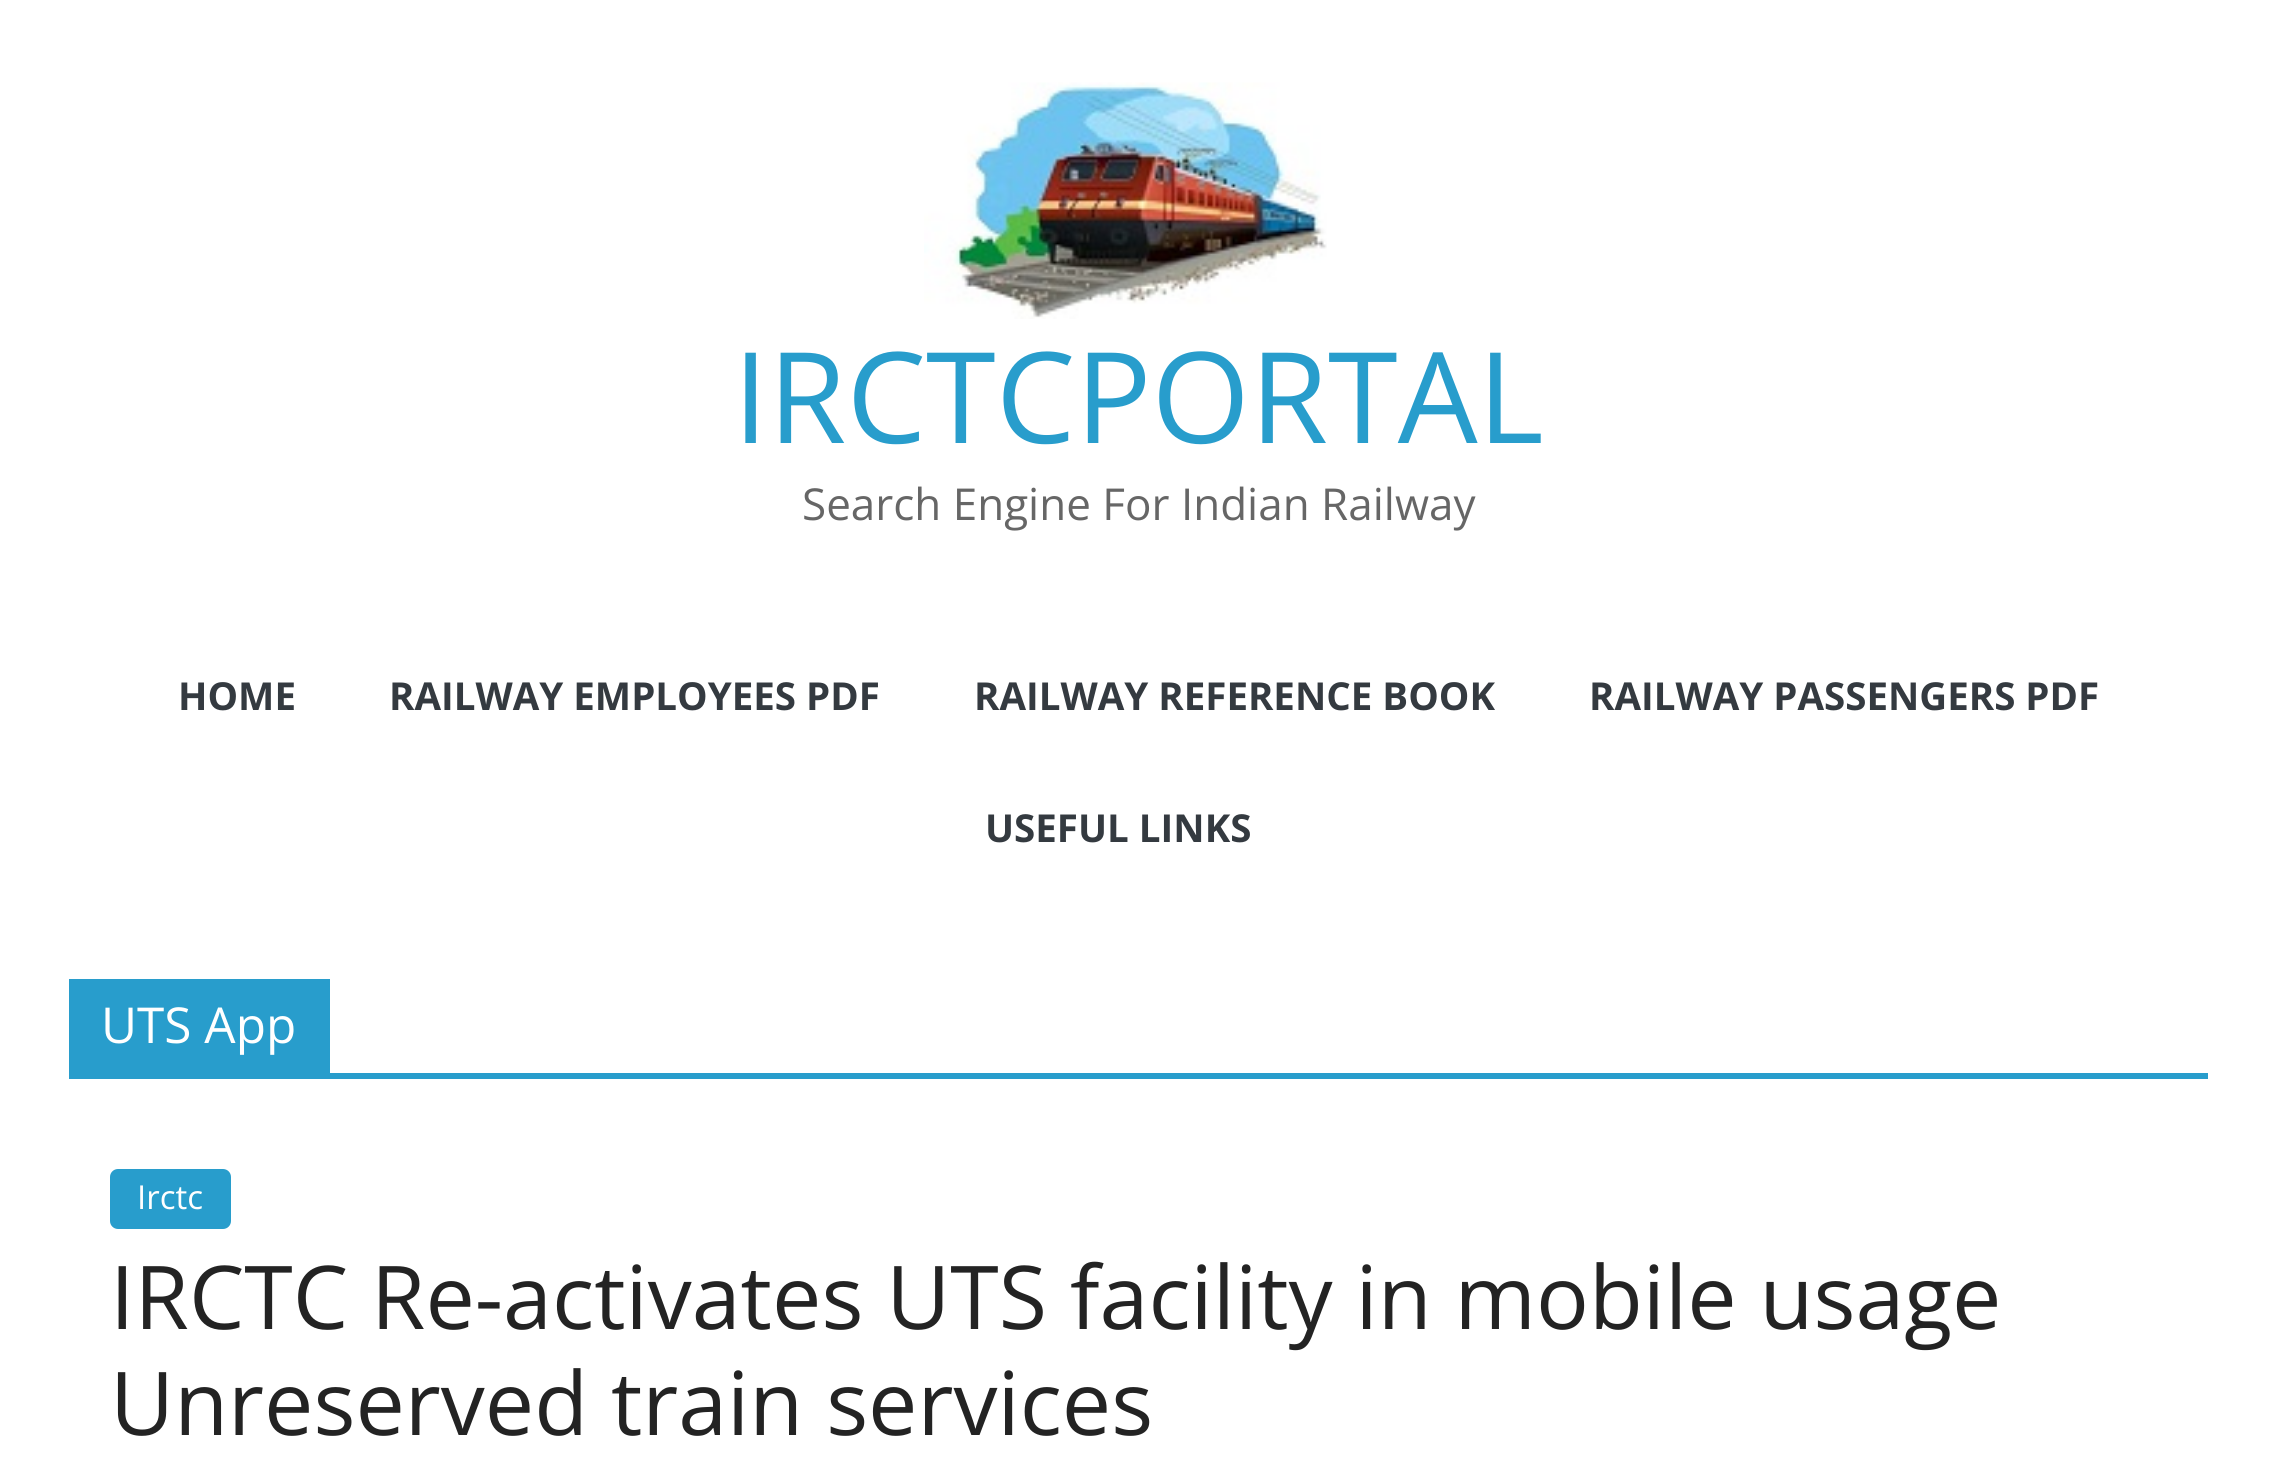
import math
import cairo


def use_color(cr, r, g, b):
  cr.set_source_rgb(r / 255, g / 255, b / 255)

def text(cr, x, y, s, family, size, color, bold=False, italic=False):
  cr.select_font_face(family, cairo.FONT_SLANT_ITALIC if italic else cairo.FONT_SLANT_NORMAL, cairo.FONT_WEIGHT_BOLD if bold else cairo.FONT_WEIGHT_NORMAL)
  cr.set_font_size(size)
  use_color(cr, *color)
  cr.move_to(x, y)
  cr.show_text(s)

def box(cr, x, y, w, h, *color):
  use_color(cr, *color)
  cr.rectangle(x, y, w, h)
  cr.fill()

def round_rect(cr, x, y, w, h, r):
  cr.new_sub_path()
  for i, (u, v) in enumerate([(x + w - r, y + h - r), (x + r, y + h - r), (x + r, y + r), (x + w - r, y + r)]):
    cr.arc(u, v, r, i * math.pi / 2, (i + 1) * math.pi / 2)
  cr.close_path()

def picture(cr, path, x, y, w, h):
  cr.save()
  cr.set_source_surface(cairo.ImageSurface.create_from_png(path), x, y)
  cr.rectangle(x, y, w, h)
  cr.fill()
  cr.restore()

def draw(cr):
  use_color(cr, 255, 255, 255)
  cr.paint()
  picture(cr, "img_01.png", 924, 82, 403, 237)
  box(cr, 69, 1073, 2139, 6, 40, 157, 204)
  box(cr, 69, 979, 261, 94, 40, 157, 204)
  round_rect(cr, 110, 1169, 121, 60, 8)
  cr.fill()
  text(cr, 733, 443, "IRCTCPORTAL", "Open Sans", 126.5, (40, 157, 204))
  text(cr, 802, 520, "Search Engine For Indian Railway", "Open Sans", 44, (102, 102, 102))
  text(cr, 178, 710, "HOME", "Open Sans", 38.5, (52, 58, 64), bold=True)
  text(cr, 389, 710, "RAILWAY EMPLOYEES PDF", "Open Sans", 38.5, (52, 58, 64), bold=True)
  text(cr, 974, 710, "RAILWAY REFERENCE BOOK", "Open Sans", 38.5, (52, 58, 64), bold=True)
  text(cr, 1589, 710, "RAILWAY PASSENGERS PDF", "Open Sans", 38.5, (52, 58, 64), bold=True)
  text(cr, 985, 842, "USEFUL LINKS", "Open Sans", 38.5, (52, 58, 64), bold=True)
  text(cr, 101, 1043, "UTS App", "Open Sans", 49.5, (255, 255, 255))
  text(cr, 137, 1209, "Irctc", "Open Sans", 33, (255, 255, 255))
  text(cr, 110, 1329, "IRCTC Re-activates UTS facility in mobile usage", "Open Sans", 88, (35, 35, 35))
  text(cr, 110, 1435, "Unreserved train services", "Open Sans", 88, (35, 35, 35))


surface = cairo.ImageSurface(cairo.FORMAT_RGB24, 2276, 1474)
cr = cairo.Context(surface)
options = cairo.FontOptions()
options.set_hint_metrics(cairo.HINT_METRICS_OFF)
options.set_hint_style(cairo.HINT_STYLE_NONE)
cr.set_font_options(options)
cr.set_miter_limit(4)
draw(cr)
surface.write_to_png("out.png")
